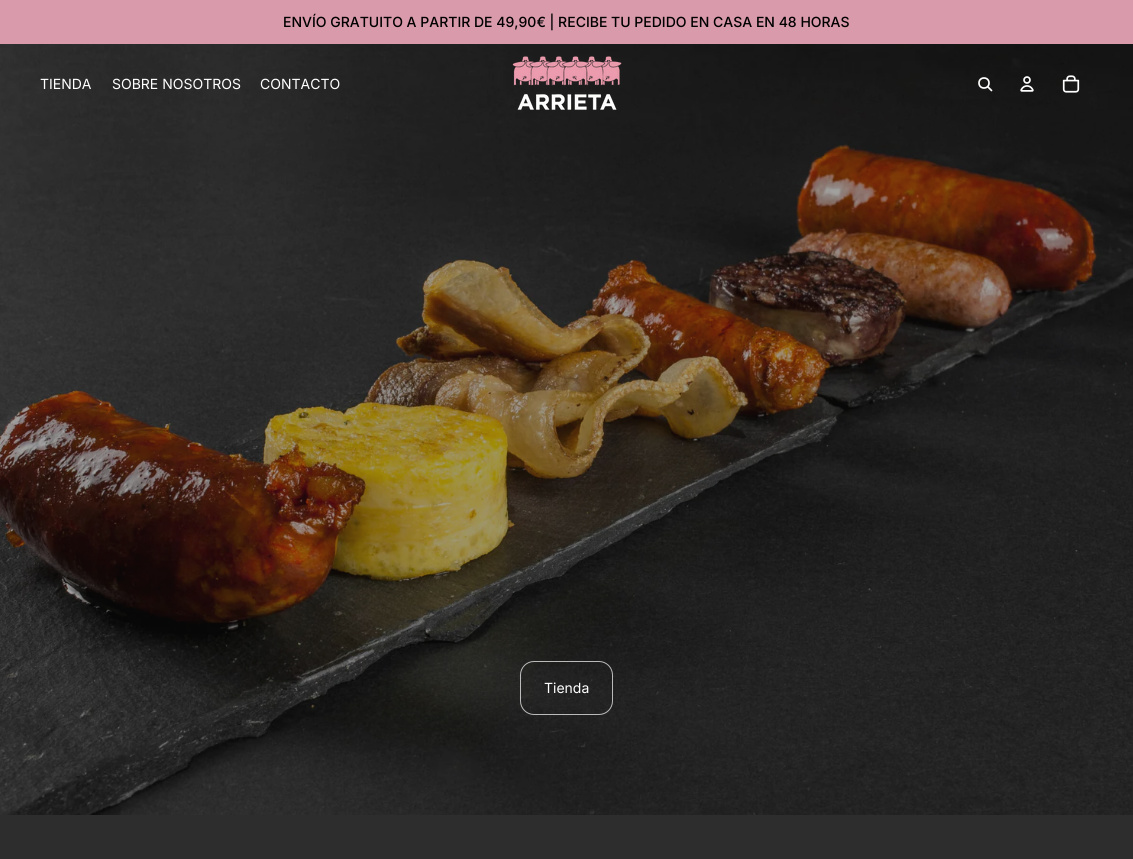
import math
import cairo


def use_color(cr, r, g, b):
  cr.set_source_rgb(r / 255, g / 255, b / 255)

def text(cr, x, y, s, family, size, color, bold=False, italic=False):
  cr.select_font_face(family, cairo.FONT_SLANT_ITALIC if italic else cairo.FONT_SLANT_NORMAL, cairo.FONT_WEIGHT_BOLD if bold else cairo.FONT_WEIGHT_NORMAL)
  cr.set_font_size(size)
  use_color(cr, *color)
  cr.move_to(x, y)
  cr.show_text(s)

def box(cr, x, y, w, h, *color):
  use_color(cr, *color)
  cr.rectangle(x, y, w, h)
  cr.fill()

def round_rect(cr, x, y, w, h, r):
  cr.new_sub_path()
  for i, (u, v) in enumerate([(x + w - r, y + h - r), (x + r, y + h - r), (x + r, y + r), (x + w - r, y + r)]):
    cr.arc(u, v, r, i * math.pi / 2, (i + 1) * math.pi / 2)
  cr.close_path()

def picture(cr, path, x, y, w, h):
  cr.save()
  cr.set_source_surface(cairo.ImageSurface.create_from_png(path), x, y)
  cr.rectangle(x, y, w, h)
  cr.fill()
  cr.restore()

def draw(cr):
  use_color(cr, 45, 45, 45)
  cr.paint()
  box(cr, 0, 0, 1133, 44, 217, 154, 171)
  picture(cr, "img_04.png", 0, 44, 1133, 771)
  picture(cr, "img_01.png", 512, 56, 110, 54)
  cr.arc(984, 83, 5, 0, 2 * math.pi)
  use_color(cr, 255, 255, 255)
  cr.set_line_width(1.7)
  cr.stroke()
  cr.new_path()
  cr.move_to(988, 87)
  cr.line_to(991.5, 90.5)
  cr.set_line_cap(cairo.LINE_CAP_ROUND)
  cr.set_line_join(cairo.LINE_JOIN_ROUND)
  cr.stroke()
  picture(cr, "img_02.png", 1020, 76, 14, 16)
  picture(cr, "img_03.png", 1062, 75, 18, 18)
  round_rect(cr, 520.5, 661.5, 92, 53, 13.5)
  cr.set_source_rgba(1, 1, 1, 0.69)
  cr.set_line_width(1)
  cr.set_line_cap(cairo.LINE_CAP_BUTT)
  cr.set_line_join(cairo.LINE_JOIN_MITER)
  cr.stroke()
  text(cr, 283, 27, "ENVÍO GRATUITO A PARTIR DE 49,90€ | RECIBE TU PEDIDO EN CASA EN 48 HORAS", "Inter Medium", 14, (0, 0, 0))
  text(cr, 40, 89, "TIENDA", "Inter", 14, (255, 255, 255))
  text(cr, 112, 89, "SOBRE NOSOTROS", "Inter", 14, (255, 255, 255))
  text(cr, 260, 89, "CONTACTO", "Inter", 14, (255, 255, 255))
  text(cr, 544, 693, "Tienda", "Inter", 14, (255, 255, 255))


surface = cairo.ImageSurface(cairo.FORMAT_RGB24, 1133, 859)
cr = cairo.Context(surface)
options = cairo.FontOptions()
options.set_hint_metrics(cairo.HINT_METRICS_OFF)
options.set_hint_style(cairo.HINT_STYLE_NONE)
cr.set_font_options(options)
cr.set_miter_limit(4)
draw(cr)
surface.write_to_png("out.png")
